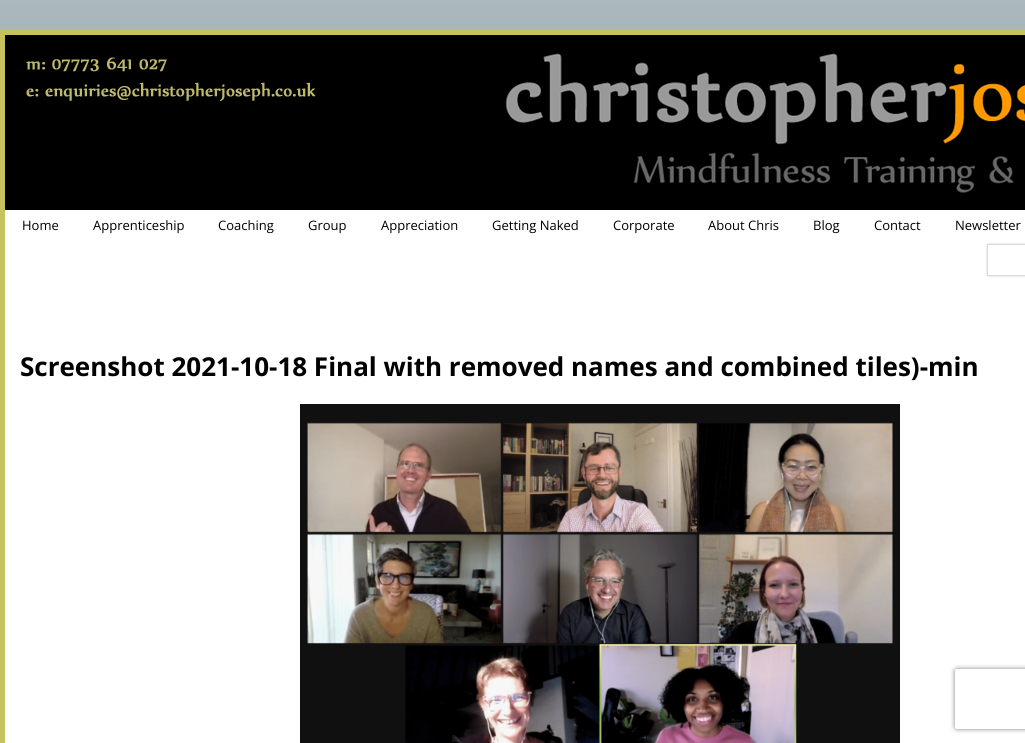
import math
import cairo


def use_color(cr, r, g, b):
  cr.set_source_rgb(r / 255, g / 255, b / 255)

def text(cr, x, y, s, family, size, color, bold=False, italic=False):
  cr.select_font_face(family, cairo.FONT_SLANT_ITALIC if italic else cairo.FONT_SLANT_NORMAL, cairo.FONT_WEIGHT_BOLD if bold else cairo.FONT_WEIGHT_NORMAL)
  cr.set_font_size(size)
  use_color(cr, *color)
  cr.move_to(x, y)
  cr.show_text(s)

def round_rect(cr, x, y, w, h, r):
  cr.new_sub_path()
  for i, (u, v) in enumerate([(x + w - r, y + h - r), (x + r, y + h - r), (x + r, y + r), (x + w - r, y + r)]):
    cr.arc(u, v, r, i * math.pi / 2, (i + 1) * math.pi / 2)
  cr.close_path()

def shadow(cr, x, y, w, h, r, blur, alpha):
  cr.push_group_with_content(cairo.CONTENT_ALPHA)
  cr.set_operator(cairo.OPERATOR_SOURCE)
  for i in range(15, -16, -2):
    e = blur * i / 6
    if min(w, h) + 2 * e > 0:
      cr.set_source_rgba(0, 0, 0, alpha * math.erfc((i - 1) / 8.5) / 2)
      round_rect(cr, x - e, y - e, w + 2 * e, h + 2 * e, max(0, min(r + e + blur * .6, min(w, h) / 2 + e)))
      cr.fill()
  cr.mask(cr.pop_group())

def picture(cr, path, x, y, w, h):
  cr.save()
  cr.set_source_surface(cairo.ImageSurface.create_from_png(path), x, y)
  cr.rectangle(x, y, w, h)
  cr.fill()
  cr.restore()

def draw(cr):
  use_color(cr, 255, 255, 255)
  cr.paint()
  gradient = cairo.LinearGradient(600, 0, 600, 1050)
  gradient.add_color_stop_rgba(0, 0.671, 0.725, 0.749, 1)
  gradient.add_color_stop_rgba(0.44, 0.431, 0.522, 0.569, 1)
  gradient.add_color_stop_rgba(1, 0.196, 0.239, 0.263, 1)
  cr.set_source(gradient)
  cr.rectangle(0, 0, 1025, 30)
  cr.fill()
  cr.rectangle(2.5, 32.5, 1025, 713)
  use_color(cr, 199, 194, 96)
  cr.set_line_width(5)
  cr.stroke()
  picture(cr, "img_01.png", 5, 35, 1020, 175)
  cr.save()
  cr.set_fill_rule(cairo.FILL_RULE_EVEN_ODD)
  cr.new_path()
  cr.move_to(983, 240)
  cr.line_to(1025, 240)
  cr.line_to(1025, 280)
  cr.line_to(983, 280)
  cr.close_path()
  cr.move_to(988, 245)
  cr.line_to(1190, 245)
  cr.line_to(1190, 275)
  cr.line_to(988, 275)
  cr.close_path()
  cr.clip()
  use_color(cr, 0, 0, 0)
  shadow(cr, 987, 244, 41, 32, 0, 1, 0.2)
  cr.restore()
  picture(cr, "img_02.png", 300, 404, 600, 339)
  cr.save()
  cr.set_fill_rule(cairo.FILL_RULE_EVEN_ODD)
  cr.new_path()
  cr.move_to(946, 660)
  cr.line_to(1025, 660)
  cr.line_to(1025, 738)
  cr.line_to(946, 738)
  cr.close_path()
  cr.move_to(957, 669)
  cr.line_to(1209, 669)
  cr.curve_to(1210, 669, 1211, 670, 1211, 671)
  cr.line_to(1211, 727)
  cr.curve_to(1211, 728, 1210, 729, 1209, 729)
  cr.line_to(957, 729)
  cr.curve_to(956, 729, 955, 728, 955, 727)
  cr.line_to(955, 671)
  cr.curve_to(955, 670, 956, 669, 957, 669)
  cr.close_path()
  cr.clip()
  use_color(cr, 128, 128, 128)
  shadow(cr, 955, 669, 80, 60, 2, 2.5, 1)
  cr.restore()
  text(cr, 22, 230, "Home", "Open Sans", 13, (0, 0, 0))
  text(cr, 93, 230, "Apprenticeship", "Open Sans", 13, (0, 0, 0))
  text(cr, 218, 230, "Coaching", "Open Sans", 13, (0, 0, 0))
  text(cr, 308, 230, "Group", "Open Sans", 13, (0, 0, 0))
  text(cr, 381, 230, "Appreciation", "Open Sans", 13, (0, 0, 0))
  text(cr, 492, 230, "Getting Naked", "Open Sans", 13, (0, 0, 0))
  text(cr, 613, 230, "Corporate", "Open Sans", 13, (0, 0, 0))
  text(cr, 708, 230, "About Chris", "Open Sans", 13, (0, 0, 0))
  text(cr, 813, 230, "Blog", "Open Sans", 13, (0, 0, 0))
  text(cr, 874, 230, "Contact", "Open Sans", 13, (0, 0, 0))
  text(cr, 955, 230, "Newsletter", "Open Sans", 13, (0, 0, 0))
  text(cr, 20, 376, "Screenshot 2021-10-18 Final with removed names and combined tiles)-min", "Open Sans", 26, (0, 0, 0), bold=True)


surface = cairo.ImageSurface(cairo.FORMAT_RGB24, 1025, 743)
cr = cairo.Context(surface)
options = cairo.FontOptions()
options.set_hint_metrics(cairo.HINT_METRICS_OFF)
options.set_hint_style(cairo.HINT_STYLE_NONE)
cr.set_font_options(options)
cr.set_miter_limit(4)
draw(cr)
surface.write_to_png("out.png")
